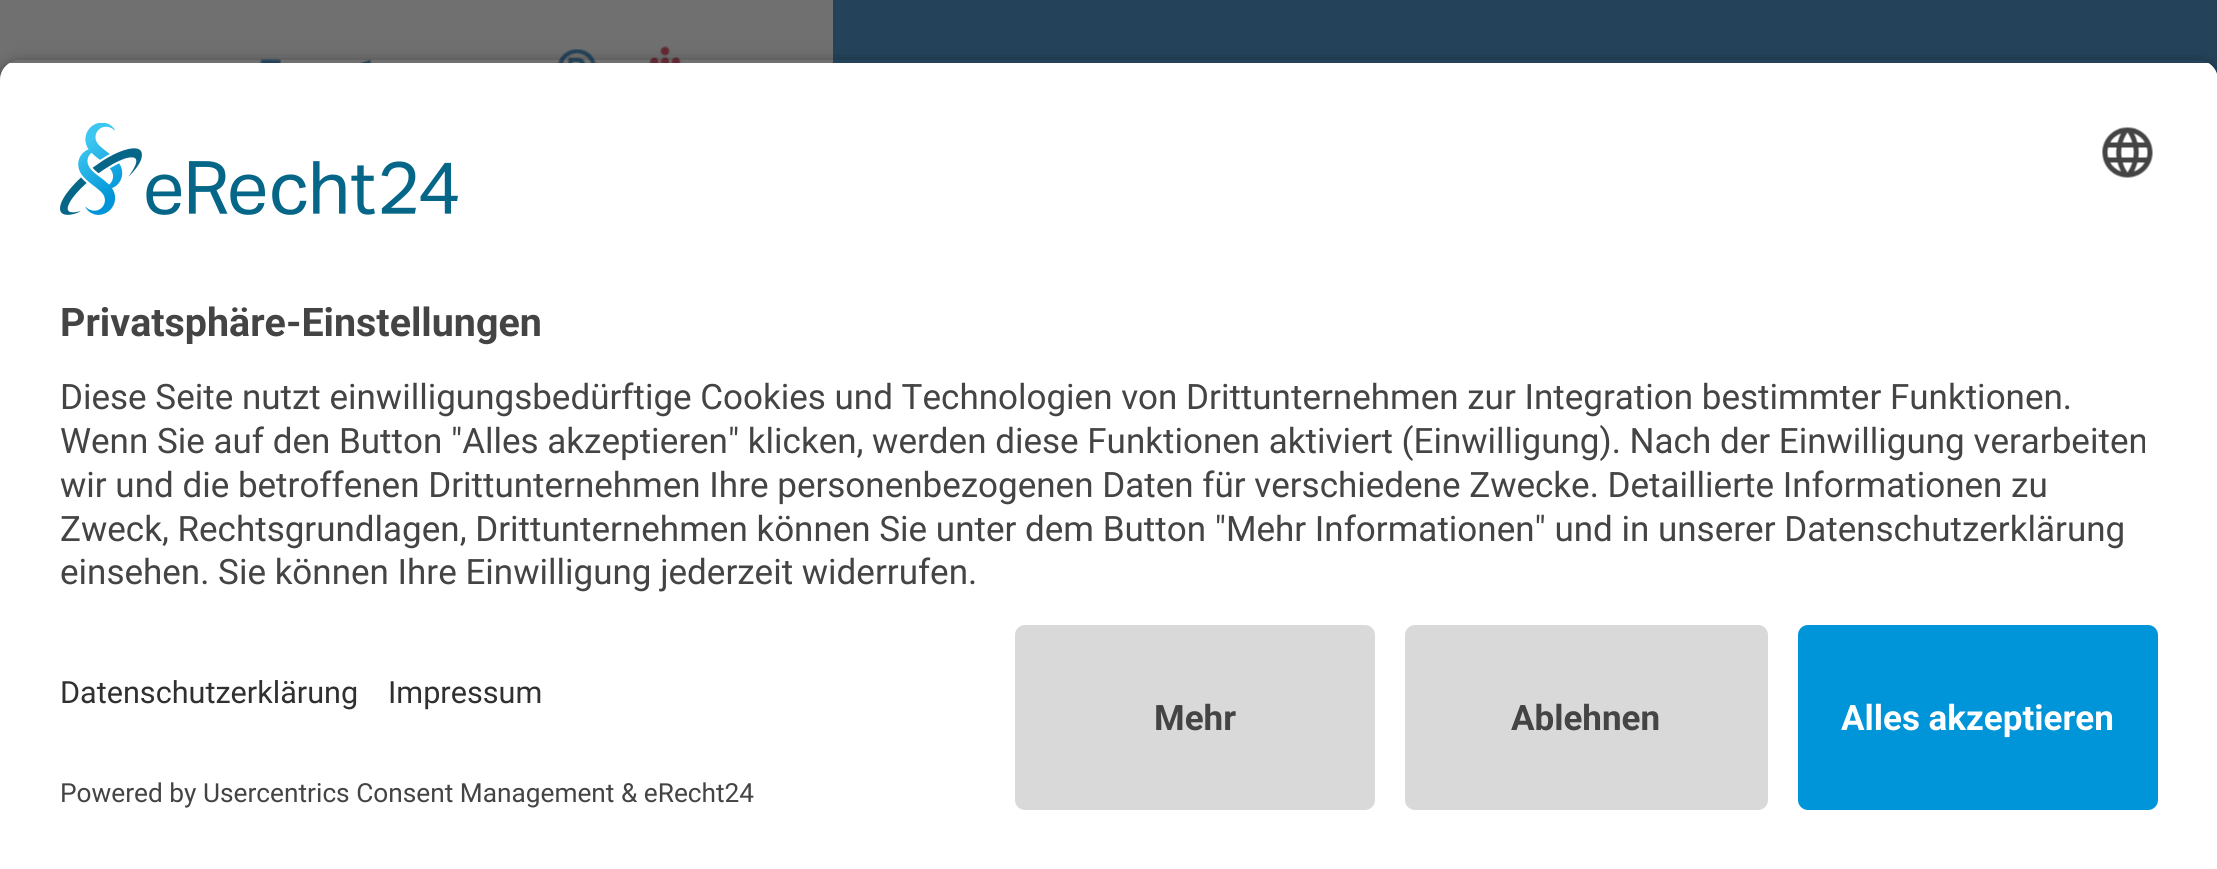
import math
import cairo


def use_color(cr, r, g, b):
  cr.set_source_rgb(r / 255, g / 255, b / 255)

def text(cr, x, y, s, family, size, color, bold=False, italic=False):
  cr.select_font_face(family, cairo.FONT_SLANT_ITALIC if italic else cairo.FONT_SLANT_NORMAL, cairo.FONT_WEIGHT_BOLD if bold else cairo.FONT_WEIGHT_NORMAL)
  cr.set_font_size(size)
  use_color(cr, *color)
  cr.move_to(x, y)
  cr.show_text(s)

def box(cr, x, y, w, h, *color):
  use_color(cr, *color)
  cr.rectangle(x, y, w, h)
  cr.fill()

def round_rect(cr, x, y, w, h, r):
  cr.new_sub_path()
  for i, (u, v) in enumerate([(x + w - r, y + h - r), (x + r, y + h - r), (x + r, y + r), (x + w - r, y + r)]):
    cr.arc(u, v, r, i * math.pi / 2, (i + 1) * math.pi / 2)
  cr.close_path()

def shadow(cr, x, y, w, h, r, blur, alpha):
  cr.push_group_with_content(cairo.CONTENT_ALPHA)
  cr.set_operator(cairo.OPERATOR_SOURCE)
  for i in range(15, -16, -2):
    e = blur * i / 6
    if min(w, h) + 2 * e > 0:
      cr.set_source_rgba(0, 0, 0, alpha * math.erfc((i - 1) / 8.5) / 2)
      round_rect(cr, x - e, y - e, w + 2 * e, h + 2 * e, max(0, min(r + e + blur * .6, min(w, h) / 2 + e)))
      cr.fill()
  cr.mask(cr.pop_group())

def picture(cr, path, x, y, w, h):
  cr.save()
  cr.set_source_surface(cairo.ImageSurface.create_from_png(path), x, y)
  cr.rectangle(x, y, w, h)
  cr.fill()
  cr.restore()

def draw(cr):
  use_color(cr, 112, 112, 112)
  cr.paint()
  picture(cr, "img_01.png", 260, 46, 422, 17)
  box(cr, 833, 0, 1384, 74, 36, 67, 90)
  cr.save()
  cr.set_fill_rule(cairo.FILL_RULE_EVEN_ODD)
  cr.new_path()
  cr.move_to(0, 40)
  cr.line_to(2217, 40)
  cr.line_to(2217, 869)
  cr.line_to(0, 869)
  cr.close_path()
  cr.move_to(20, 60)
  cr.line_to(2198, 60)
  cr.curve_to(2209, 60, 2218, 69, 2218, 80)
  cr.line_to(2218, 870)
  cr.line_to(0, 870)
  cr.line_to(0, 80)
  cr.curve_to(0, 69, 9, 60, 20, 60)
  cr.close_path()
  cr.clip()
  use_color(cr, 0, 0, 0)
  shadow(cr, 0, 68, 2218, 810, 20, 9, 0.8)
  cr.restore()
  cr.save()
  cr.new_path()
  cr.move_to(20, 60)
  cr.line_to(2198, 60)
  cr.curve_to(2209, 60, 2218, 69, 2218, 80)
  cr.line_to(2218, 605)
  cr.line_to(0, 605)
  cr.line_to(0, 80)
  cr.curve_to(0, 69, 9, 60, 20, 60)
  cr.close_path()
  cr.clip()
  box(cr, 0, 63, 2217, 542, 255, 255, 255)
  cr.restore()
  picture(cr, "img_02.png", 60, 123, 398, 92)
  picture(cr, "img_03.png", 2102, 127, 51, 51)
  box(cr, 0, 605, 2217, 264, 255, 255, 255)
  use_color(cr, 217, 217, 217)
  round_rect(cr, 1015, 625, 360, 185, 10)
  cr.fill()
  round_rect(cr, 1405, 625, 363, 185, 10)
  cr.fill()
  use_color(cr, 0, 148, 216)
  round_rect(cr, 1798, 625, 360, 185, 10)
  cr.fill()
  text(cr, 60, 336, "Privatsphäre-Einstellungen", "Roboto", 39.4, (68, 68, 68), bold=True)
  text(cr, 60, 409, "Diese Seite nutzt einwilligungsbedürftige Cookies und Technologien von Drittunternehmen zur Integration bestimmter Funktionen.", "Roboto", 35, (68, 68, 68))
  text(cr, 60, 453, "Wenn Sie auf den Button \"Alles akzeptieren\" klicken, werden diese Funktionen aktiviert (Einwilligung). Nach der Einwilligung verarbeiten", "Roboto", 35, (68, 68, 68))
  text(cr, 60, 497, "wir und die betroffenen Drittunternehmen Ihre personenbezogenen Daten für verschiedene Zwecke. Detaillierte Informationen zu", "Roboto", 35, (68, 68, 68))
  text(cr, 60, 541, "Zweck, Rechtsgrundlagen, Drittunternehmen können Sie unter dem Button \"Mehr Informationen\" und in unserer Datenschutzerklärung", "Roboto", 35, (68, 68, 68))
  text(cr, 60, 584, "einsehen. Sie können Ihre Einwilligung jederzeit widerrufen.", "Roboto", 35, (68, 68, 68))
  text(cr, 60, 703, "Datenschutzerklärung", "Roboto", 30.6, (48, 48, 48))
  text(cr, 388, 703, "Impressum", "Roboto", 30.6, (48, 48, 48))
  text(cr, 60, 802, "Powered by Usercentrics Consent Management & eRecht24", "Roboto", 26.25, (68, 68, 68))
  text(cr, 1154, 730, "Mehr", "Roboto", 35, (68, 68, 68), bold=True)
  text(cr, 1511, 730, "Ablehnen", "Roboto", 35, (68, 68, 68), bold=True)
  text(cr, 1841, 730, "Alles akzeptieren", "Roboto", 35, (255, 255, 255), bold=True)


surface = cairo.ImageSurface(cairo.FORMAT_RGB24, 2217, 869)
cr = cairo.Context(surface)
options = cairo.FontOptions()
options.set_hint_metrics(cairo.HINT_METRICS_OFF)
options.set_hint_style(cairo.HINT_STYLE_NONE)
cr.set_font_options(options)
cr.set_miter_limit(4)
draw(cr)
surface.write_to_png("out.png")
